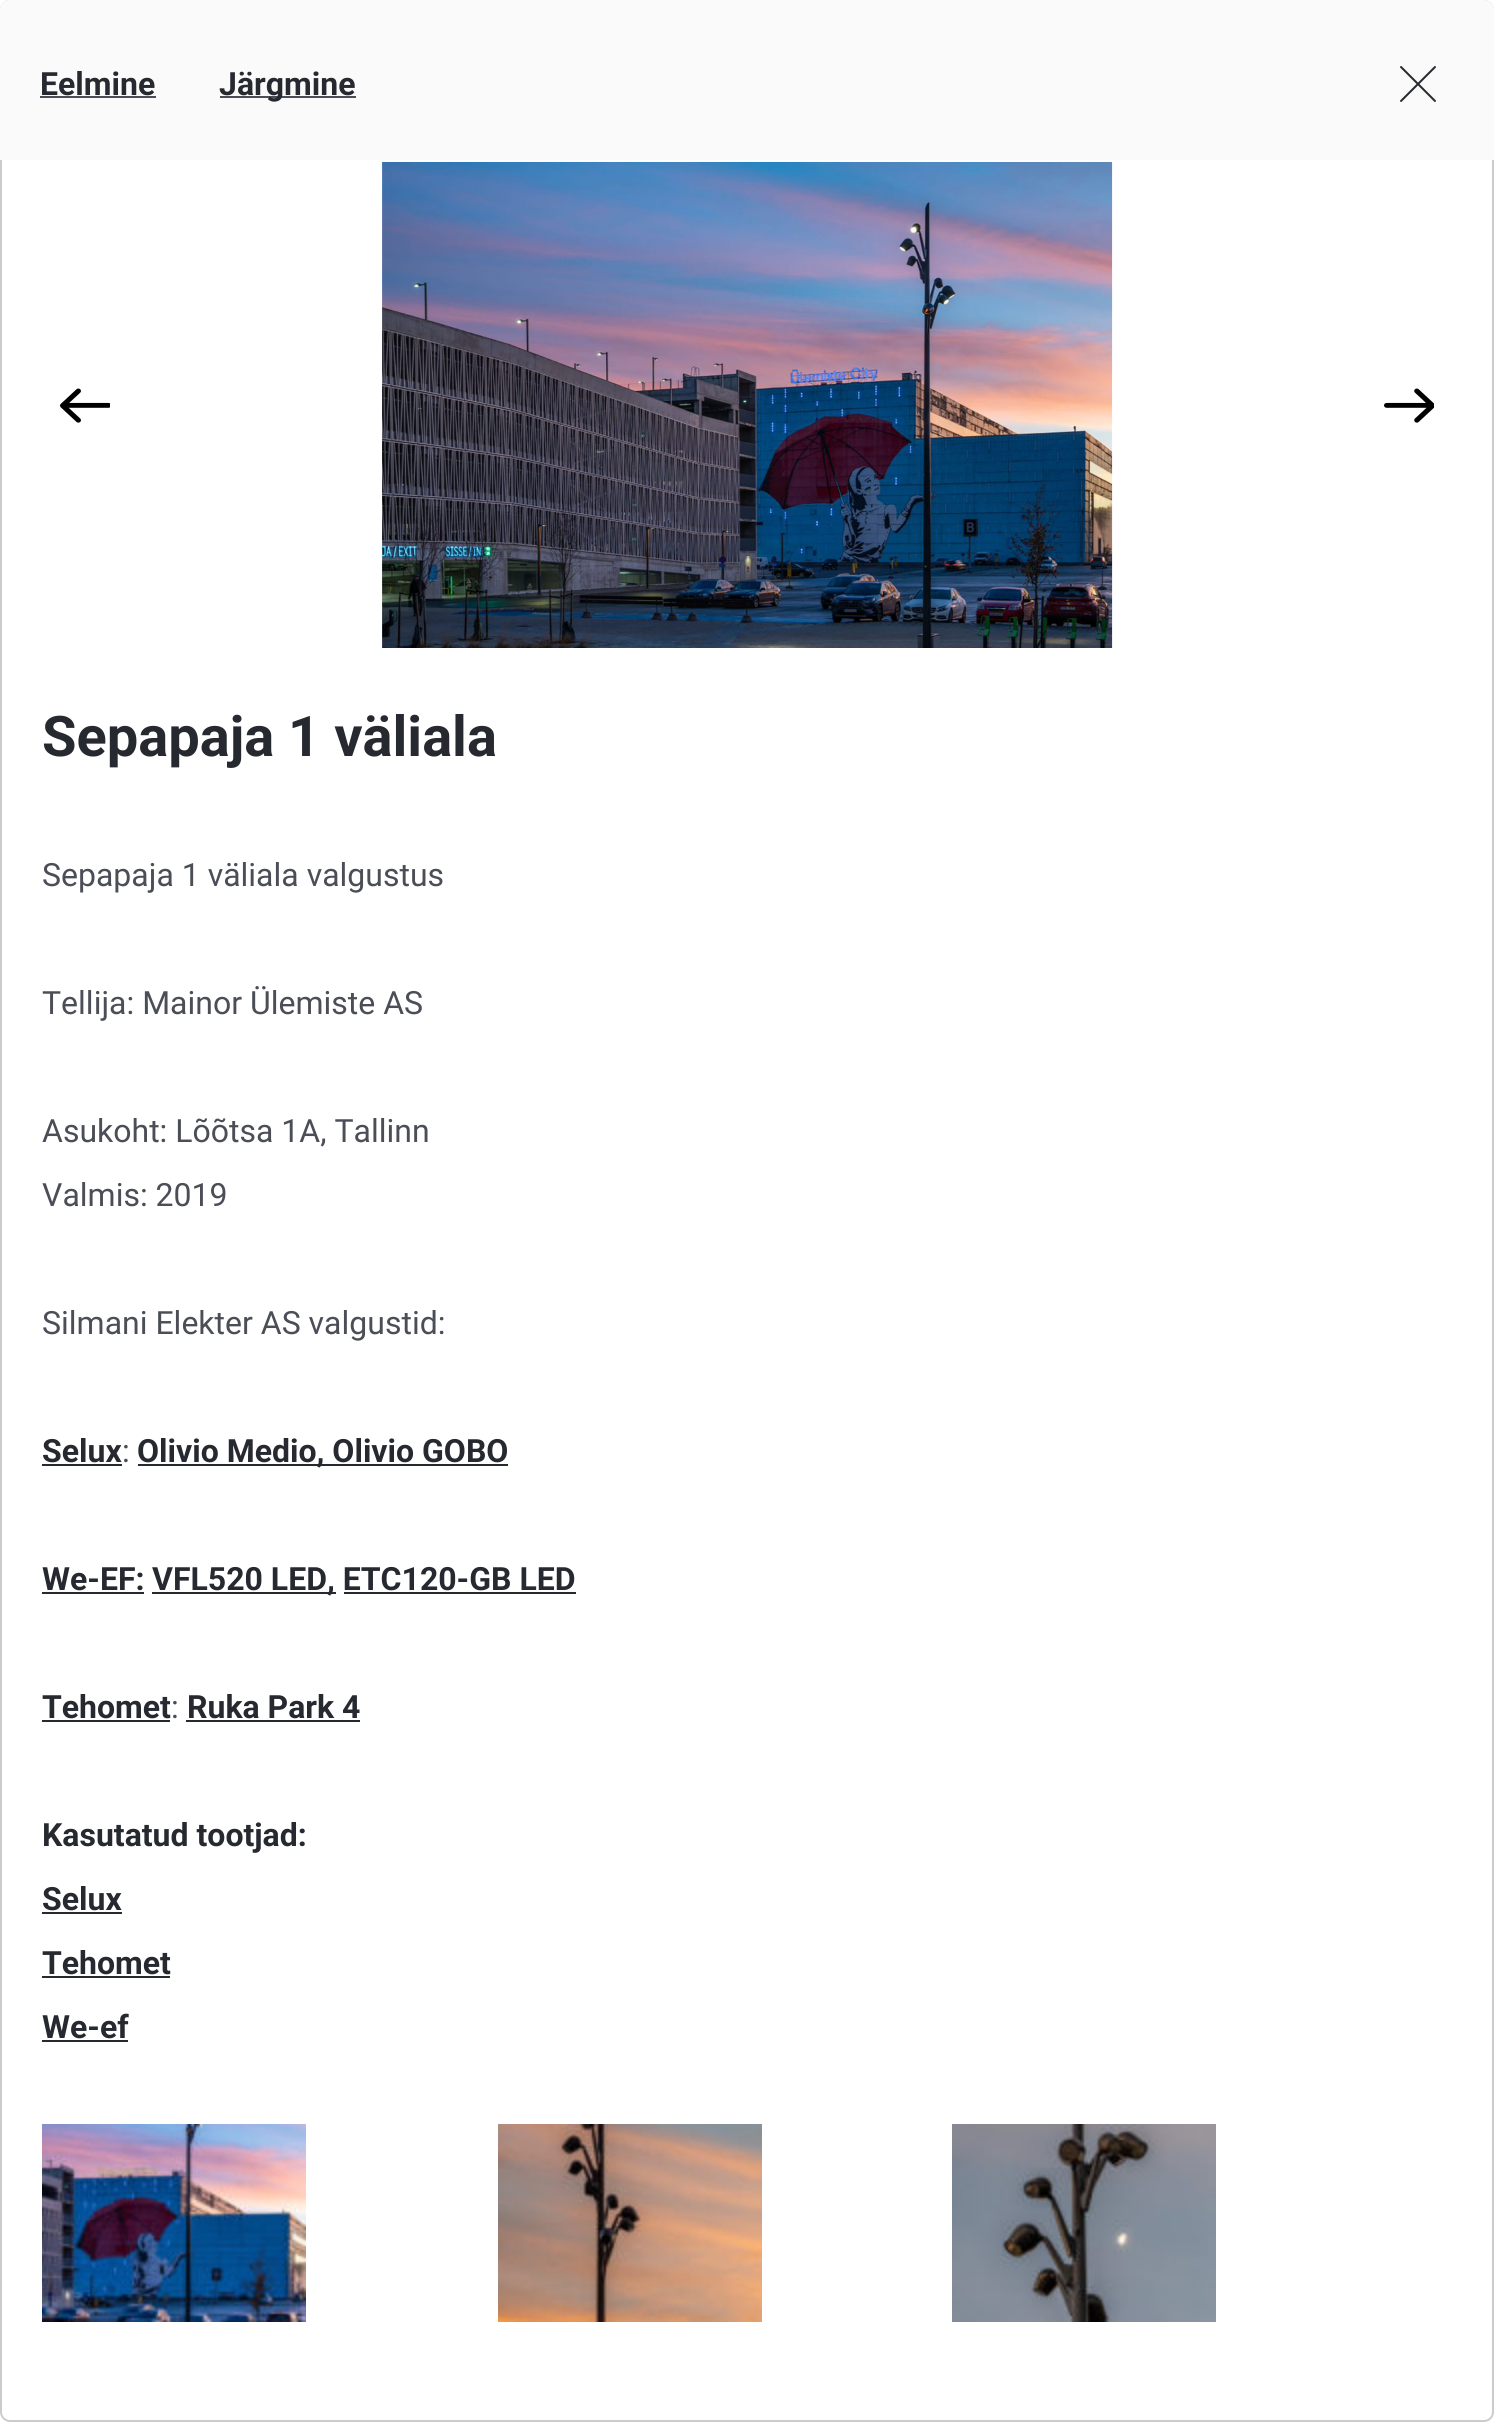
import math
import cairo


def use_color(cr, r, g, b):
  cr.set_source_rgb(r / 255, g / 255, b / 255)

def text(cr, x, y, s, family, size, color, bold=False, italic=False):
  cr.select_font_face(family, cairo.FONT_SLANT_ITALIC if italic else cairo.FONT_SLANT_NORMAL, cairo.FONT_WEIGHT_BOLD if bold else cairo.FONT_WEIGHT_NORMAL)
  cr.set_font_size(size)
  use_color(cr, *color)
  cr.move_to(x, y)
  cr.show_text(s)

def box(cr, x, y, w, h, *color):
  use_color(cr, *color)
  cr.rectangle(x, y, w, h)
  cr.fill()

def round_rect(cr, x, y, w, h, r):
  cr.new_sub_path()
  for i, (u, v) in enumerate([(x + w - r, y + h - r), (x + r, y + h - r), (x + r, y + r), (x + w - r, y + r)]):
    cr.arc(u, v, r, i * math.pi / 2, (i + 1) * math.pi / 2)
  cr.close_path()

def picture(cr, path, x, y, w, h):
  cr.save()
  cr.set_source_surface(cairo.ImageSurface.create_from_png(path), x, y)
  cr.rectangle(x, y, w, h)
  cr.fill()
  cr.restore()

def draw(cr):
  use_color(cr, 255, 255, 255)
  cr.paint()
  round_rect(cr, 1, 1, 1492, 2420, 9)
  use_color(cr, 204, 204, 204)
  cr.stroke()
  use_color(cr, 250, 250, 250)
  cr.new_path()
  cr.move_to(10, 0)
  cr.line_to(1484, 0)
  cr.curve_to(1489.5, 0, 1494, 4.5, 1494, 10)
  cr.line_to(1494, 160)
  cr.line_to(0, 160)
  cr.line_to(0, 10)
  cr.curve_to(0, 4.5, 4.5, 0, 10, 0)
  cr.close_path()
  cr.fill()
  box(cr, 40, 96, 116, 2, 75, 78, 87)
  box(cr, 220, 96, 136, 2, 75, 78, 87)
  picture(cr, "img_01.png", 1400, 66, 36, 36)
  box(cr, 42, 1464, 80, 2, 38, 41, 48)
  box(cr, 138, 1464, 370, 2, 38, 41, 48)
  box(cr, 42, 1592, 102, 2, 38, 41, 48)
  box(cr, 152, 1592, 184, 2, 38, 41, 48)
  box(cr, 344, 1592, 232, 2, 38, 41, 48)
  box(cr, 42, 1720, 128, 2, 38, 41, 48)
  box(cr, 186, 1720, 174, 2, 38, 41, 48)
  box(cr, 42, 1912, 80, 2, 38, 41, 48)
  box(cr, 42, 1976, 128, 2, 38, 41, 48)
  box(cr, 42, 2040, 86, 2, 38, 41, 48)
  picture(cr, "img_02.png", 42, 2124, 264, 198)
  picture(cr, "img_03.png", 498, 2124, 264, 198)
  picture(cr, "img_04.png", 952, 2124, 264, 198)
  picture(cr, "img_05.png", 60, 388, 50, 35)
  picture(cr, "img_06.png", 382, 162, 731, 486)
  picture(cr, "img_07.png", 1384, 388, 50, 35)
  text(cr, 40, 95, "Eelmine", "Roboto", 32, (38, 41, 48), bold=True)
  text(cr, 219, 95, "Järgmine", "Roboto", 32, (38, 41, 48), bold=True)
  text(cr, 42, 756, "Sepapaja 1 väliala", "Roboto", 56, (38, 41, 48), bold=True)
  text(cr, 42, 886, "Sepapaja 1 väliala valgustus", "Roboto", 32, (75, 78, 87))
  text(cr, 42, 1014, "Tellija: Mainor Ülemiste AS", "Roboto", 32, (75, 78, 87))
  text(cr, 42, 1142, "Asukoht: Lõõtsa 1A, Tallinn", "Roboto", 32, (75, 78, 87))
  text(cr, 42, 1206, "Valmis: 2019", "Roboto", 32, (75, 78, 87))
  text(cr, 42, 1334, "Silmani Elekter AS valgustid:", "Roboto", 32, (75, 78, 87))
  text(cr, 42, 1462, "Selux", "Roboto", 32, (38, 41, 48), bold=True)
  text(cr, 122, 1462, ":", "Roboto", 32, (75, 78, 87))
  text(cr, 137, 1462, "Olivio Medio, Olivio GOBO", "Roboto", 32, (38, 41, 48), bold=True)
  text(cr, 42, 1590, "We-EF:", "Roboto", 32, (38, 41, 48), bold=True)
  text(cr, 152, 1590, "VFL520 LED, ETC120-GB LED", "Roboto", 32, (38, 41, 48), bold=True)
  text(cr, 42, 1718, "Tehomet", "Roboto", 32, (38, 41, 48), bold=True)
  text(cr, 171, 1718, ":", "Roboto", 32, (75, 78, 87))
  text(cr, 187, 1718, "Ruka Park 4", "Roboto", 32, (38, 41, 48), bold=True)
  text(cr, 42, 1846, "Kasutatud tootjad:", "Roboto", 32, (38, 41, 48), bold=True)
  text(cr, 42, 1910, "Selux", "Roboto", 32, (38, 41, 48), bold=True)
  text(cr, 42, 1974, "Tehomet", "Roboto", 32, (38, 41, 48), bold=True)
  text(cr, 42, 2038, "We-ef", "Roboto", 32, (38, 41, 48), bold=True)


surface = cairo.ImageSurface(cairo.FORMAT_RGB24, 1494, 2422)
cr = cairo.Context(surface)
options = cairo.FontOptions()
options.set_hint_metrics(cairo.HINT_METRICS_OFF)
options.set_hint_style(cairo.HINT_STYLE_NONE)
cr.set_font_options(options)
cr.set_miter_limit(4)
draw(cr)
surface.write_to_png("out.png")
